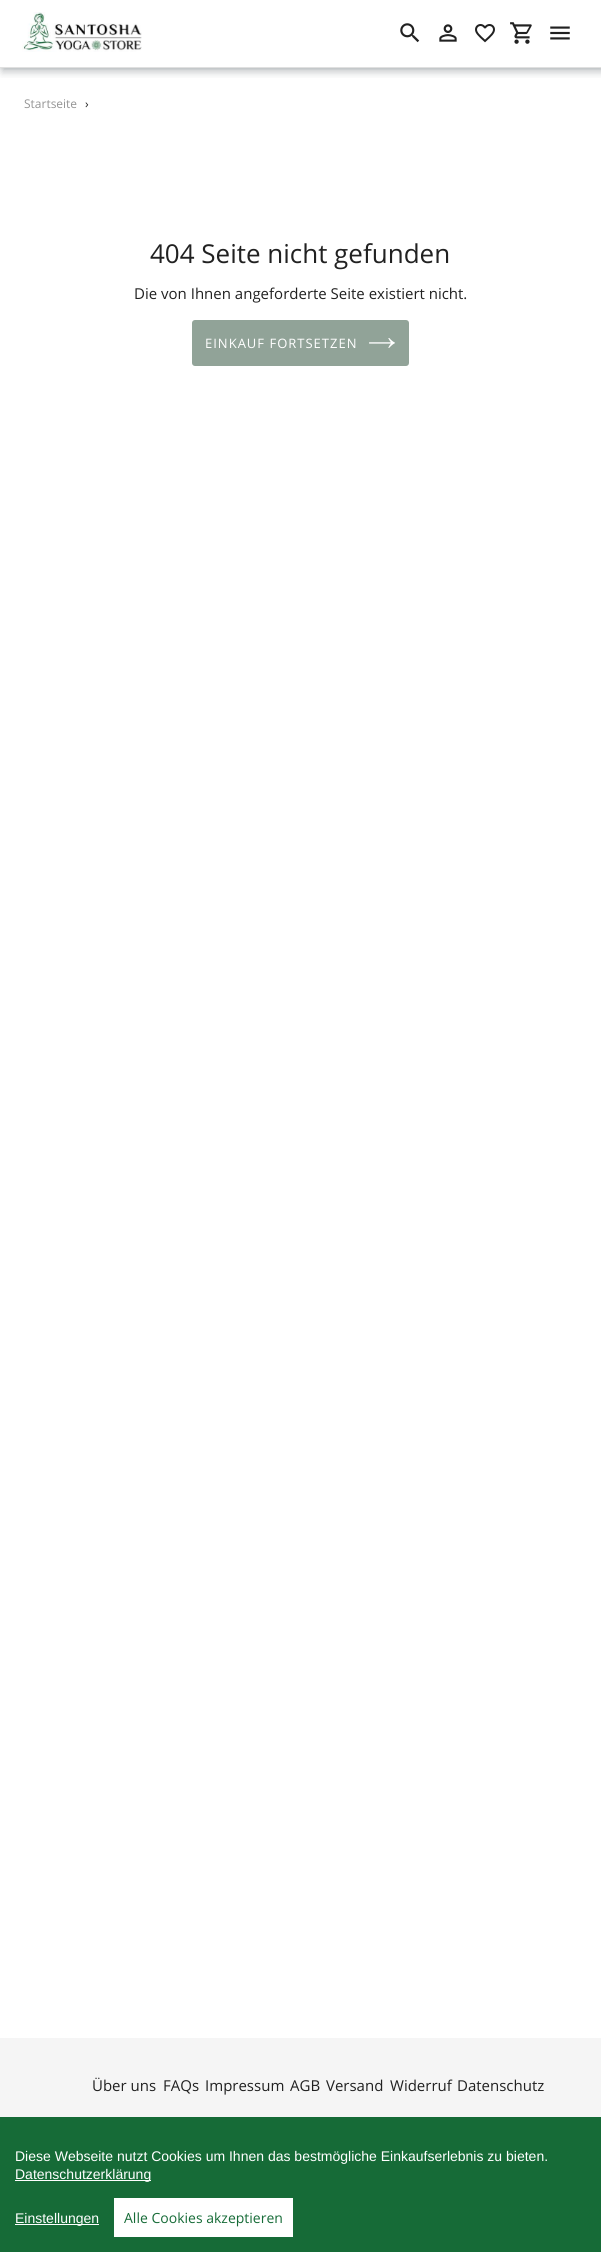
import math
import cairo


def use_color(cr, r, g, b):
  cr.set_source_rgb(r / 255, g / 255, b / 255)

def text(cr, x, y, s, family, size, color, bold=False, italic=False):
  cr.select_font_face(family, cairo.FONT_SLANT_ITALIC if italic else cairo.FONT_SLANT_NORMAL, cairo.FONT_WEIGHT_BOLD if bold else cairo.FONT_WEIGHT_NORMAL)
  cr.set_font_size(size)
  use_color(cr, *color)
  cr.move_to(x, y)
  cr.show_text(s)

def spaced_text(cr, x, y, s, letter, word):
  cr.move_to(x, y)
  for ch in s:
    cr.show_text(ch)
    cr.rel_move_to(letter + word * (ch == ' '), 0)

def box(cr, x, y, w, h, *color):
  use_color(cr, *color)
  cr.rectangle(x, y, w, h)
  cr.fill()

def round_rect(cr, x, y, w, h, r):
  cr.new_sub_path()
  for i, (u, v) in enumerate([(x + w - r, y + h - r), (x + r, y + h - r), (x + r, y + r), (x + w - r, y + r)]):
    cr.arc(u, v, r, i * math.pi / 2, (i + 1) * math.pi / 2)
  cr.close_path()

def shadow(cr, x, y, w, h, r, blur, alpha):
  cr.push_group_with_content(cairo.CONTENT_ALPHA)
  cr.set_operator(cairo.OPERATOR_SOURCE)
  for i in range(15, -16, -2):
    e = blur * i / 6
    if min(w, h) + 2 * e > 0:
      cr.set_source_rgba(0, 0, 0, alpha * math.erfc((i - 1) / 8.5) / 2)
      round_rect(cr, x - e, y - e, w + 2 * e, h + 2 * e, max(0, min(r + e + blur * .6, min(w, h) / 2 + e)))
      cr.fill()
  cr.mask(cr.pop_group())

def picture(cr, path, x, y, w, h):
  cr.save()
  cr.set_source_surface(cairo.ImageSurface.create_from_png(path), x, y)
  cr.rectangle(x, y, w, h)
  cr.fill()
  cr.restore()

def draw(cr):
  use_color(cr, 255, 255, 255)
  cr.paint()
  cr.save()
  cr.rectangle(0, 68, 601, 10)
  cr.clip()
  use_color(cr, 38, 50, 56)
  shadow(cr, 2, 4, 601, 68, 0, 4, 0.28)
  cr.restore()
  cr.save()
  cr.rectangle(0, 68, 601, 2)
  cr.clip()
  use_color(cr, 38, 50, 56)
  shadow(cr, 0, 0, 601, 68, 0, 2, 0.14)
  cr.restore()
  box(cr, 0, 67, 601, 1, 224, 224, 224)
  picture(cr, "img_01.png", 22, 12, 120, 40)
  picture(cr, "img_02.png", 400, 23, 20, 20)
  picture(cr, "img_03.png", 439, 24, 18, 18)
  picture(cr, "img_04.png", 475, 24, 20, 19)
  picture(cr, "img_05.png", 510, 22, 22, 22)
  picture(cr, "img_06.png", 550, 26, 20, 14)
  use_color(cr, 145, 163, 152)
  round_rect(cr, 192, 320, 217, 46, 3)
  cr.fill()
  picture(cr, "img_07.png", 369, 338, 26, 10)
  box(cr, 0, 2038, 601, 79, 245, 245, 245)
  box(cr, 0, 2117, 601, 135, 22, 107, 55)
  box(cr, 15, 2180, 136, 1, 255, 255, 255)
  box(cr, 15, 2224, 84, 1, 255, 255, 255)
  box(cr, 114, 2198, 179, 39, 255, 255, 255)
  text(cr, 24, 108, "Startseite", "Open Sans", 12, (148, 148, 148))
  text(cr, 85, 108, "›", "Open Sans", 12, (33, 33, 33))
  text(cr, 150, 263, "404 Seite nicht gefunden", "Open Sans", 26, (33, 33, 33))
  text(cr, 134, 299, "Die von Ihnen angeforderte Seite existiert nicht.", "Open Sans", 15, (33, 33, 33))
  cr.set_font_size(13)
  use_color(cr, 255, 255, 255)
  spaced_text(cr, 205, 348, "EINKAUF FORTSETZEN", 1, 0)
  text(cr, 92, 2091, "Über uns", "Open Sans", 15, (33, 33, 33))
  text(cr, 163, 2091, "FAQs", "Open Sans", 15, (33, 33, 33))
  text(cr, 205, 2091, "Impressum", "Open Sans", 15, (33, 33, 33))
  text(cr, 290, 2091, "AGB", "Open Sans", 15, (33, 33, 33))
  text(cr, 326, 2091, "Versand", "Open Sans", 15, (33, 33, 33))
  text(cr, 390, 2091, "Widerruf", "Open Sans", 15, (33, 33, 33))
  text(cr, 457, 2091, "Datenschutz", "Open Sans", 15, (33, 33, 33))
  text(cr, 15, 2161, "Diese Webseite nutzt Cookies um Ihnen das bestmögliche Einkaufserlebnis zu bieten.", "Liberation Sans", 14, (255, 255, 255))
  text(cr, 15, 2179, "Datenschutzerklärung", "Liberation Sans", 14, (255, 255, 255))
  text(cr, 15, 2223, "Einstellungen", "Liberation Sans", 14, (255, 255, 255))
  text(cr, 124, 2223, "Alle Cookies akzeptieren", "Open Sans", 14, (22, 107, 55))


surface = cairo.ImageSurface(cairo.FORMAT_RGB24, 601, 2252)
cr = cairo.Context(surface)
options = cairo.FontOptions()
options.set_hint_metrics(cairo.HINT_METRICS_OFF)
options.set_hint_style(cairo.HINT_STYLE_NONE)
cr.set_font_options(options)
cr.set_miter_limit(4)
draw(cr)
surface.write_to_png("out.png")
